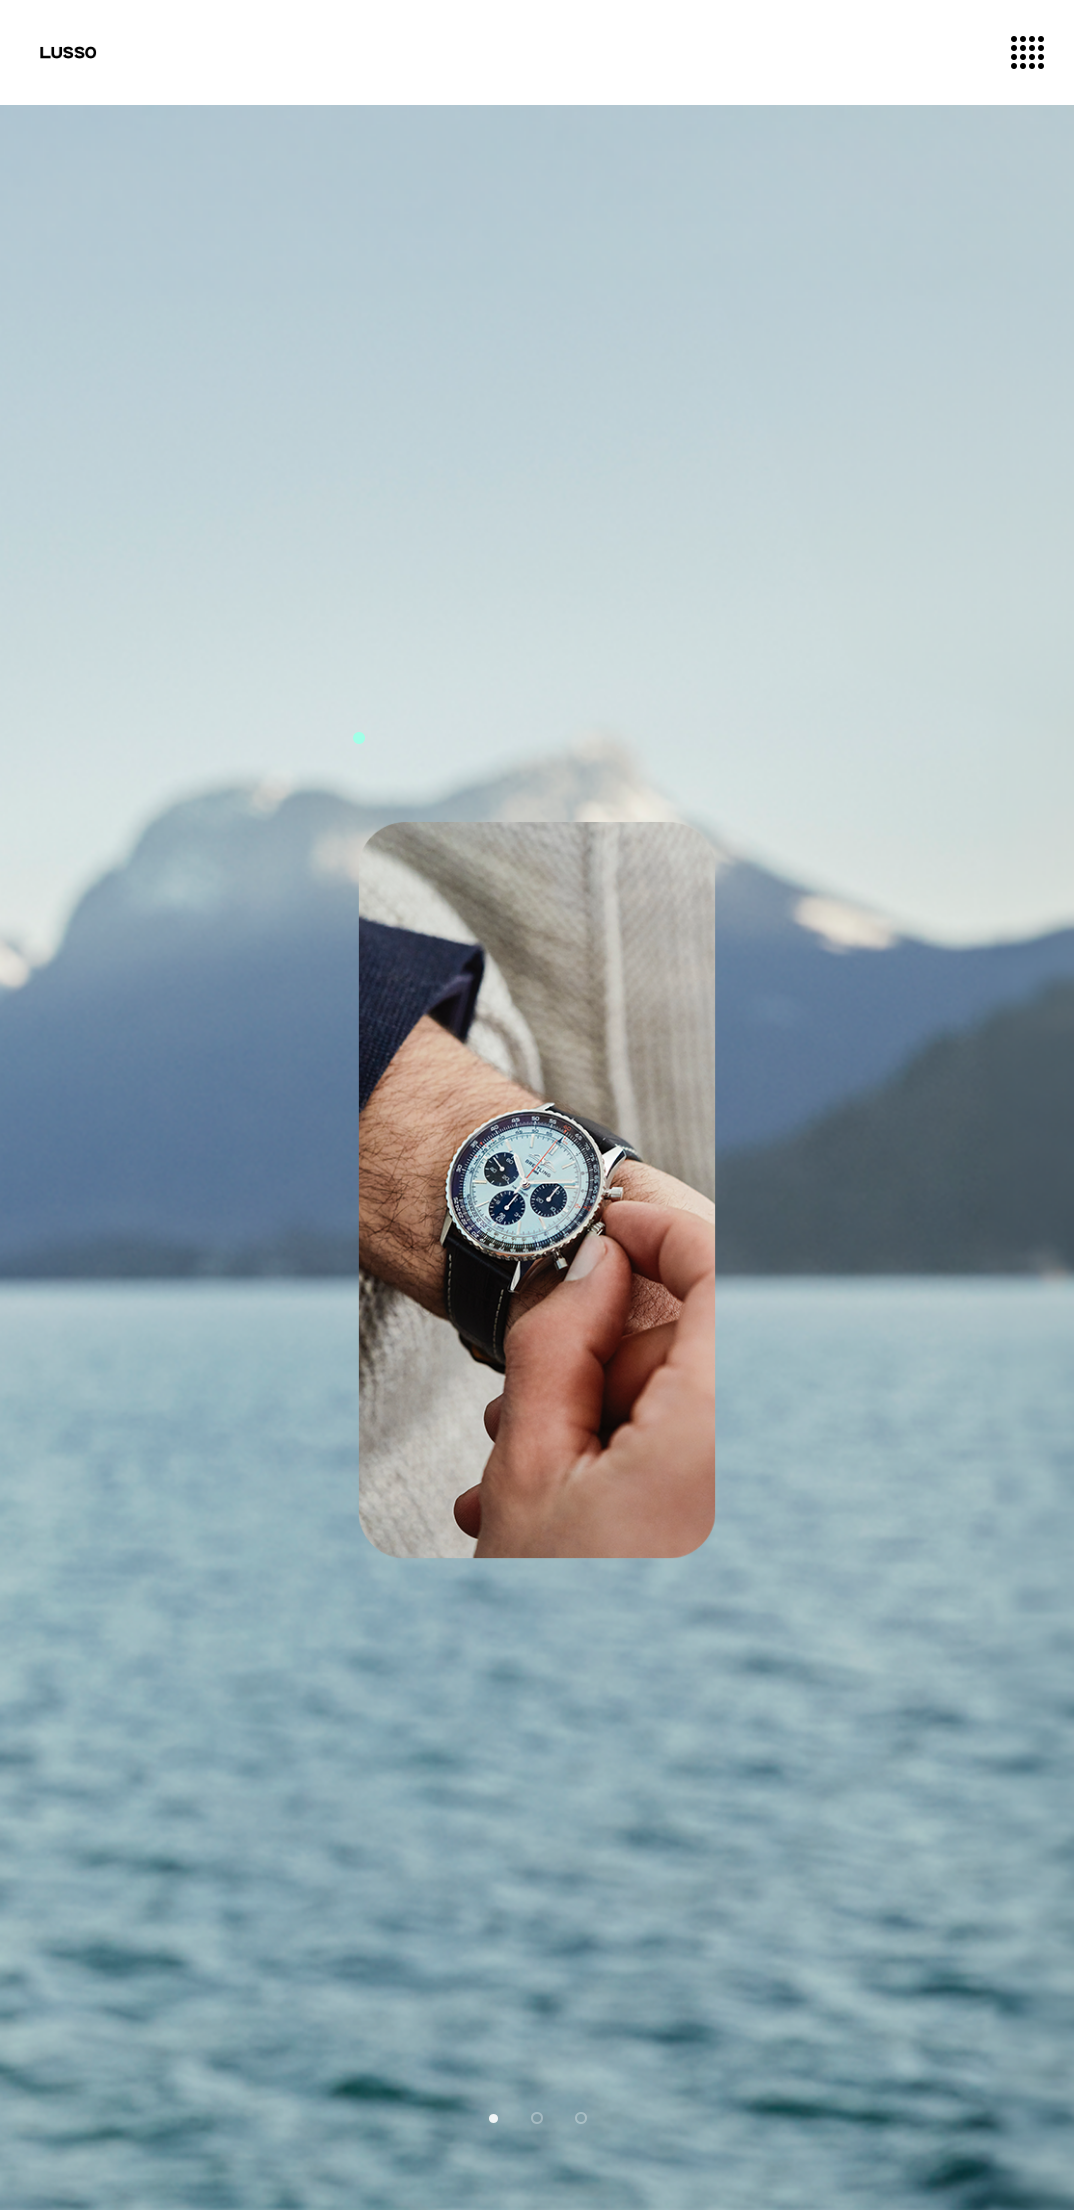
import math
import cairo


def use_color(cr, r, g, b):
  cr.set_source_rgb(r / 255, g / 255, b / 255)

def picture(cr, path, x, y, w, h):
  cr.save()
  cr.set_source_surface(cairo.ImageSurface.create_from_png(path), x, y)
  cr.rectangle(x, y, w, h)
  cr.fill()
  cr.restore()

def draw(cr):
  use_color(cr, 255, 255, 255)
  cr.paint()
  picture(cr, "img_01.png", 40, 46, 57, 13)
  use_color(cr, 0, 0, 0)
  cr.arc(1014, 39, 3, 0, 2 * math.pi)
  cr.fill()
  cr.arc(1023, 39, 3, 0, 2 * math.pi)
  cr.fill()
  cr.arc(1032, 39, 3, 0, 2 * math.pi)
  cr.fill()
  cr.arc(1041, 39, 3, 0, 2 * math.pi)
  cr.fill()
  cr.arc(1014, 48, 3, 0, 2 * math.pi)
  cr.fill()
  cr.arc(1023, 48, 3, 0, 2 * math.pi)
  cr.fill()
  cr.arc(1032, 48, 3, 0, 2 * math.pi)
  cr.fill()
  cr.arc(1041, 48, 3, 0, 2 * math.pi)
  cr.fill()
  cr.arc(1014, 57, 3, 0, 2 * math.pi)
  cr.fill()
  cr.arc(1023, 57, 3, 0, 2 * math.pi)
  cr.fill()
  cr.arc(1032, 57, 3, 0, 2 * math.pi)
  cr.fill()
  cr.arc(1041, 57, 3, 0, 2 * math.pi)
  cr.fill()
  cr.arc(1014, 66, 3, 0, 2 * math.pi)
  cr.fill()
  cr.arc(1023, 66, 3, 0, 2 * math.pi)
  cr.fill()
  cr.arc(1032, 66, 3, 0, 2 * math.pi)
  cr.fill()
  cr.arc(1041, 66, 3, 0, 2 * math.pi)
  cr.fill()
  picture(cr, "img_02.png", 0, 105, 1074, 2105)
  picture(cr, "img_03.png", 358, 822, 358, 737)
  cr.set_source_rgba(1, 1, 1, 0.89)
  cr.arc(493.5, 2118.5, 4.5, 0, 2 * math.pi)
  cr.fill()
  cr.arc(537, 2118, 5, 0, 2 * math.pi)
  cr.set_source_rgba(1, 1, 1, 0.32)
  cr.stroke()
  cr.arc(581, 2118, 5, 0, 2 * math.pi)
  cr.stroke()
  use_color(cr, 161, 255, 231)
  cr.arc(359, 738, 6, 0, 2 * math.pi)
  cr.fill()


surface = cairo.ImageSurface(cairo.FORMAT_RGB24, 1074, 2210)
cr = cairo.Context(surface)
options = cairo.FontOptions()
options.set_hint_metrics(cairo.HINT_METRICS_OFF)
options.set_hint_style(cairo.HINT_STYLE_NONE)
cr.set_font_options(options)
cr.set_miter_limit(4)
draw(cr)
surface.write_to_png("out.png")
